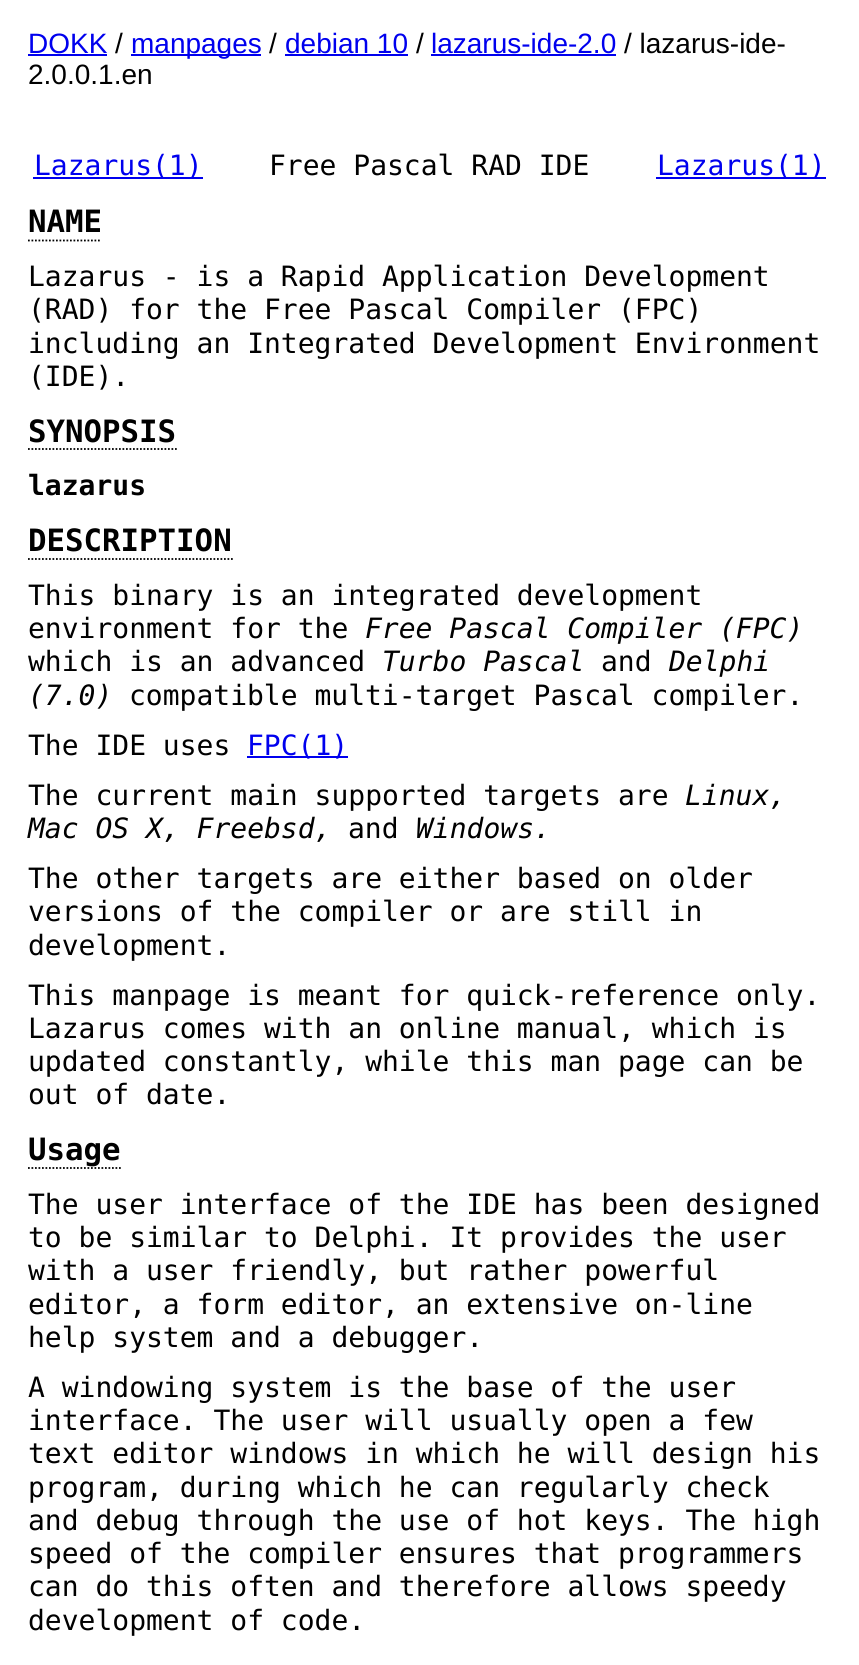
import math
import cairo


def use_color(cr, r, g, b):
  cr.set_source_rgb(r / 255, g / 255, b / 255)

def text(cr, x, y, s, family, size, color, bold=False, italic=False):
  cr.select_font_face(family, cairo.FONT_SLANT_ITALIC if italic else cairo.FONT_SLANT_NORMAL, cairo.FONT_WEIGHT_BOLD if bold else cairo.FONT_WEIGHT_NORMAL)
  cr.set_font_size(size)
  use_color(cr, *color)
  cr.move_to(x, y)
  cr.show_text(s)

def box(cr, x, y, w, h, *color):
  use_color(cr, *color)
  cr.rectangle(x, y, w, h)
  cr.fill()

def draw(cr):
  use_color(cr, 255, 255, 255)
  cr.paint()
  box(cr, 28, 54, 79, 2, 0, 0, 238)
  box(cr, 131, 54, 130, 2, 0, 0, 238)
  box(cr, 285, 54, 123, 2, 0, 0, 238)
  box(cr, 431, 54, 185, 2, 0, 0, 238)
  box(cr, 33, 177, 170, 2, 0, 0, 238)
  box(cr, 656, 177, 170, 2, 0, 0, 238)
  cr.new_path()
  cr.move_to(28, 240.5)
  cr.line_to(101.5, 240.5)
  use_color(cr, 0, 0, 0)
  cr.set_line_width(1.8)
  cr.set_dash([1.75, 1.75])
  cr.stroke()
  cr.new_path()
  cr.move_to(28, 449)
  cr.line_to(177, 449)
  cr.stroke()
  cr.new_path()
  cr.move_to(28, 559)
  cr.line_to(233, 559)
  cr.stroke()
  box(cr, 247, 756, 101, 2, 0, 0, 238)
  cr.new_path()
  cr.move_to(28, 1168)
  cr.line_to(121, 1168)
  use_color(cr, 0, 0, 0)
  cr.stroke()
  text(cr, 28, 53, "DOKK", "Liberation Sans", 28, (0, 0, 238))
  text(cr, 115, 53, "/", "Liberation Sans", 28, (0, 0, 0))
  text(cr, 131, 53, "manpages", "Liberation Sans", 28, (0, 0, 238))
  text(cr, 269, 53, "/", "Liberation Sans", 28, (0, 0, 0))
  text(cr, 285, 53, "debian 10", "Liberation Sans", 28, (0, 0, 238))
  text(cr, 416, 53, "/", "Liberation Sans", 28, (0, 0, 0))
  text(cr, 431, 53, "lazarus-ide-2.0", "Liberation Sans", 28, (0, 0, 238))
  text(cr, 624, 53, "/ lazarus-ide-", "Liberation Sans", 28, (0, 0, 0))
  text(cr, 28, 84, "2.0.0.1.en", "Liberation Sans", 28, (0, 0, 0))
  text(cr, 34, 175, "Lazarus(1)", "DejaVu Sans Mono", 28, (0, 0, 238))
  text(cr, 269, 175, "Free Pascal RAD IDE", "DejaVu Sans Mono", 28, (0, 0, 0))
  text(cr, 657, 175, "Lazarus(1)", "DejaVu Sans Mono", 28, (0, 0, 238))
  text(cr, 28, 232, "NAME", "DejaVu Sans Mono", 30.75, (0, 0, 0), bold=True)
  text(cr, 28, 286, "Lazarus - is a Rapid Application Development", "DejaVu Sans Mono", 28, (0, 0, 0))
  text(cr, 28, 319, "(RAD) for the Free Pascal Compiler (FPC)", "DejaVu Sans Mono", 28, (0, 0, 0))
  text(cr, 28, 353, "including an Integrated Development Environment", "DejaVu Sans Mono", 28, (0, 0, 0))
  text(cr, 28, 386, "(IDE).", "DejaVu Sans Mono", 28, (0, 0, 0))
  text(cr, 28, 442, "SYNOPSIS", "DejaVu Sans Mono", 30.75, (0, 0, 0), bold=True)
  text(cr, 28, 495, "lazarus", "DejaVu Sans Mono", 28, (0, 0, 0), bold=True)
  text(cr, 28, 551, "DESCRIPTION", "DejaVu Sans Mono", 30.75, (0, 0, 0), bold=True)
  text(cr, 28, 605, "This binary is an integrated development", "DejaVu Sans Mono", 28, (0, 0, 0))
  text(cr, 28, 638, "environment for the", "DejaVu Sans Mono", 28, (0, 0, 0))
  text(cr, 365, 638, "Free Pascal Compiler (FPC)", "DejaVu Sans Mono", 28, (0, 0, 0), italic=True)
  text(cr, 28, 671, "which is an advanced", "DejaVu Sans Mono", 28, (0, 0, 0))
  text(cr, 382, 671, "Turbo Pascal", "DejaVu Sans Mono", 28, (0, 0, 0), italic=True)
  text(cr, 601, 671, "and", "DejaVu Sans Mono", 28, (0, 0, 0))
  text(cr, 669, 671, "Delphi", "DejaVu Sans Mono", 28, (0, 0, 0), italic=True)
  text(cr, 28, 705, "(7.0)", "DejaVu Sans Mono", 28, (0, 0, 0), italic=True)
  text(cr, 129, 705, "compatible multi-target Pascal compiler.", "DejaVu Sans Mono", 28, (0, 0, 0))
  text(cr, 28, 755, "The IDE uses", "DejaVu Sans Mono", 28, (0, 0, 0))
  text(cr, 247, 755, "FPC(1)", "DejaVu Sans Mono", 28, (0, 0, 238))
  text(cr, 28, 805, "The current main supported targets are", "DejaVu Sans Mono", 28, (0, 0, 0))
  text(cr, 685, 805, "Linux,", "DejaVu Sans Mono", 28, (0, 0, 0), italic=True)
  text(cr, 28, 838, "Mac OS X, Freebsd,", "DejaVu Sans Mono", 28, (0, 0, 0), italic=True)
  text(cr, 348, 838, "and", "DejaVu Sans Mono", 28, (0, 0, 0))
  text(cr, 416, 838, "Windows.", "DejaVu Sans Mono", 28, (0, 0, 0), italic=True)
  text(cr, 28, 888, "The other targets are either based on older", "DejaVu Sans Mono", 28, (0, 0, 0))
  text(cr, 28, 921, "versions of the compiler or are still in", "DejaVu Sans Mono", 28, (0, 0, 0))
  text(cr, 28, 955, "development.", "DejaVu Sans Mono", 28, (0, 0, 0))
  text(cr, 28, 1005, "This manpage is meant for quick-reference only.", "DejaVu Sans Mono", 28, (0, 0, 0))
  text(cr, 28, 1038, "Lazarus comes with an online manual, which is", "DejaVu Sans Mono", 28, (0, 0, 0))
  text(cr, 28, 1071, "updated constantly, while this man page can be", "DejaVu Sans Mono", 28, (0, 0, 0))
  text(cr, 28, 1104, "out of date.", "DejaVu Sans Mono", 28, (0, 0, 0))
  text(cr, 28, 1160, "Usage", "DejaVu Sans Mono", 30.75, (0, 0, 0), bold=True)
  text(cr, 28, 1214, "The user interface of the IDE has been designed", "DejaVu Sans Mono", 28, (0, 0, 0))
  text(cr, 28, 1247, "to be similar to Delphi. It provides the user", "DejaVu Sans Mono", 28, (0, 0, 0))
  text(cr, 28, 1280, "with a user friendly, but rather powerful", "DejaVu Sans Mono", 28, (0, 0, 0))
  text(cr, 28, 1314, "editor, a form editor, an extensive on-line", "DejaVu Sans Mono", 28, (0, 0, 0))
  text(cr, 28, 1347, "help system and a debugger.", "DejaVu Sans Mono", 28, (0, 0, 0))
  text(cr, 28, 1397, "A windowing system is the base of the user", "DejaVu Sans Mono", 28, (0, 0, 0))
  text(cr, 28, 1430, "interface. The user will usually open a few", "DejaVu Sans Mono", 28, (0, 0, 0))
  text(cr, 28, 1463, "text editor windows in which he will design his", "DejaVu Sans Mono", 28, (0, 0, 0))
  text(cr, 28, 1497, "program, during which he can regularly check", "DejaVu Sans Mono", 28, (0, 0, 0))
  text(cr, 28, 1530, "and debug through the use of hot keys. The high", "DejaVu Sans Mono", 28, (0, 0, 0))
  text(cr, 28, 1563, "speed of the compiler ensures that programmers", "DejaVu Sans Mono", 28, (0, 0, 0))
  text(cr, 28, 1596, "can do this often and therefore allows speedy", "DejaVu Sans Mono", 28, (0, 0, 0))
  text(cr, 28, 1630, "development of code.", "DejaVu Sans Mono", 28, (0, 0, 0))


surface = cairo.ImageSurface(cairo.FORMAT_RGB24, 859, 1665)
cr = cairo.Context(surface)
options = cairo.FontOptions()
options.set_hint_metrics(cairo.HINT_METRICS_OFF)
options.set_hint_style(cairo.HINT_STYLE_NONE)
cr.set_font_options(options)
cr.set_miter_limit(4)
draw(cr)
surface.write_to_png("out.png")
